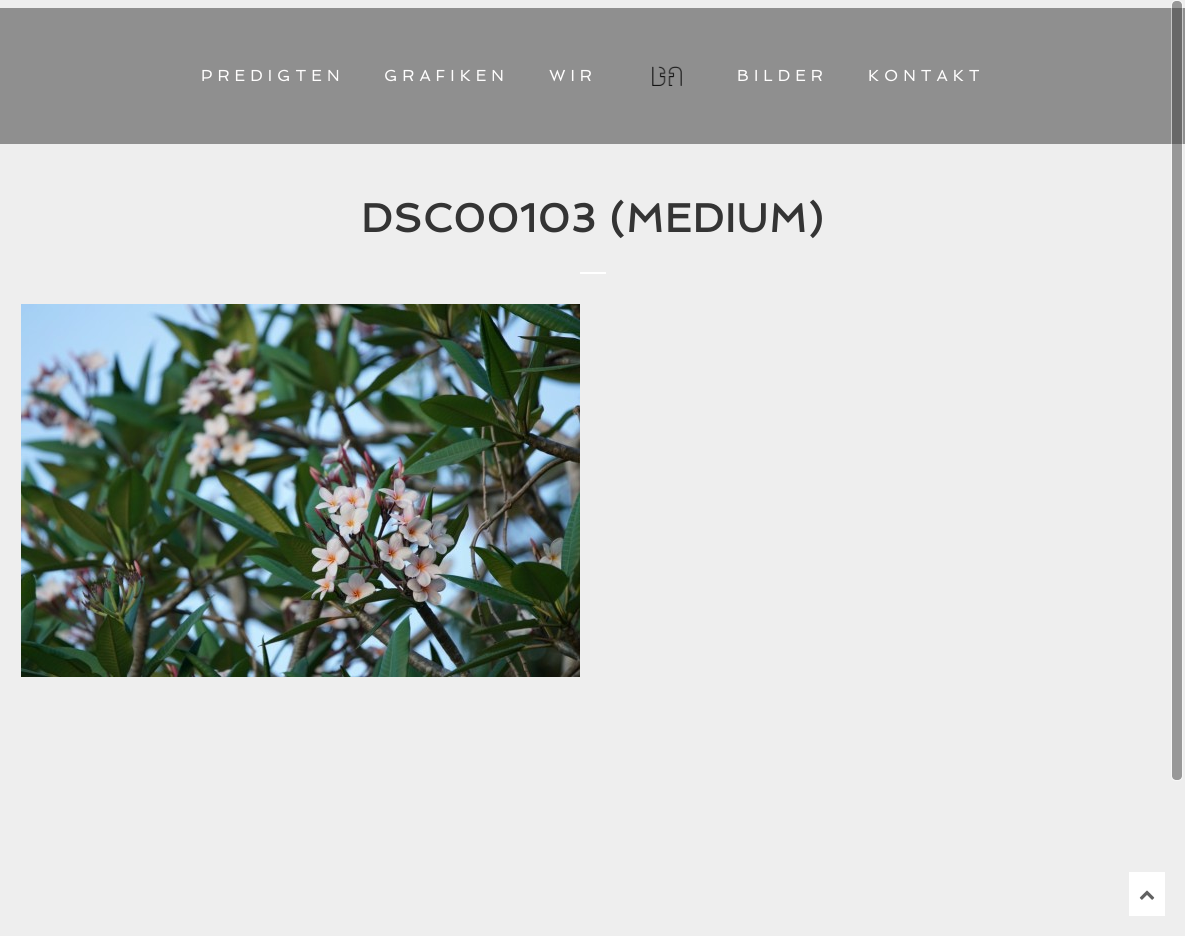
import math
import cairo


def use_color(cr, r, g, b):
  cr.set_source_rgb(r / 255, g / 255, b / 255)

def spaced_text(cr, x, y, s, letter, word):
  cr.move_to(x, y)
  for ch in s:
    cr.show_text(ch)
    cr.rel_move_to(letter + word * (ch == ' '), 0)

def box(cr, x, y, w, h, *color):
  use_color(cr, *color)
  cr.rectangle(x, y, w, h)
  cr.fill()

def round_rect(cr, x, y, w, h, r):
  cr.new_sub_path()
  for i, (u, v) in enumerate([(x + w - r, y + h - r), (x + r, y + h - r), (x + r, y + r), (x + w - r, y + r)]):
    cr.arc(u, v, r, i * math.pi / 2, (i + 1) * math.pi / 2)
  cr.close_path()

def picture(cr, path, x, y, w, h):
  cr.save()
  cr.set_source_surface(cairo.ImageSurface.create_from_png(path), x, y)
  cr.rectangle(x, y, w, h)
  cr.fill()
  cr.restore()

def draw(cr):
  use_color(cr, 238, 238, 238)
  cr.paint()
  box(cr, 0, 8, 1185, 136, 143, 143, 143)
  picture(cr, "img_01.png", 652, 66, 30, 20)
  cr.set_source_rgba(0.259, 0.259, 0.259, 0.5)
  round_rect(cr, 1172, 1, 10, 779, 4)
  cr.fill()
  round_rect(cr, 1171.5, 0.5, 11, 780, 4.5)
  cr.set_source_rgba(1, 1, 1, 0.5)
  cr.set_line_width(1)
  cr.stroke()
  box(cr, 580, 272, 26, 2, 255, 255, 255)
  picture(cr, "img_02.png", 21, 304, 559, 373)
  box(cr, 1129, 872, 36, 44, 255, 255, 255)
  picture(cr, "img_03.png", 1139, 890, 16, 10)
  cr.select_font_face("Spinnaker")
  cr.set_font_size(16)
  use_color(cr, 255, 254, 254)
  spaced_text(cr, 201, 81, "PREDIGTEN", 5, 0)
  spaced_text(cr, 384, 81, "GRAFIKEN", 5, 0)
  spaced_text(cr, 549, 81, "WIR", 5, 0)
  spaced_text(cr, 737, 81, "BILDER", 5, 0)
  spaced_text(cr, 868, 81, "KONTAKT", 5, 0)
  cr.select_font_face("Spinnaker", cairo.FONT_SLANT_NORMAL, cairo.FONT_WEIGHT_BOLD)
  cr.set_font_size(40)
  use_color(cr, 52, 52, 52)
  spaced_text(cr, 361, 232, "DSC00103 (MEDIUM)", 1, 0)


surface = cairo.ImageSurface(cairo.FORMAT_RGB24, 1185, 936)
cr = cairo.Context(surface)
options = cairo.FontOptions()
options.set_hint_metrics(cairo.HINT_METRICS_OFF)
options.set_hint_style(cairo.HINT_STYLE_NONE)
cr.set_font_options(options)
cr.set_miter_limit(4)
draw(cr)
surface.write_to_png("out.png")
